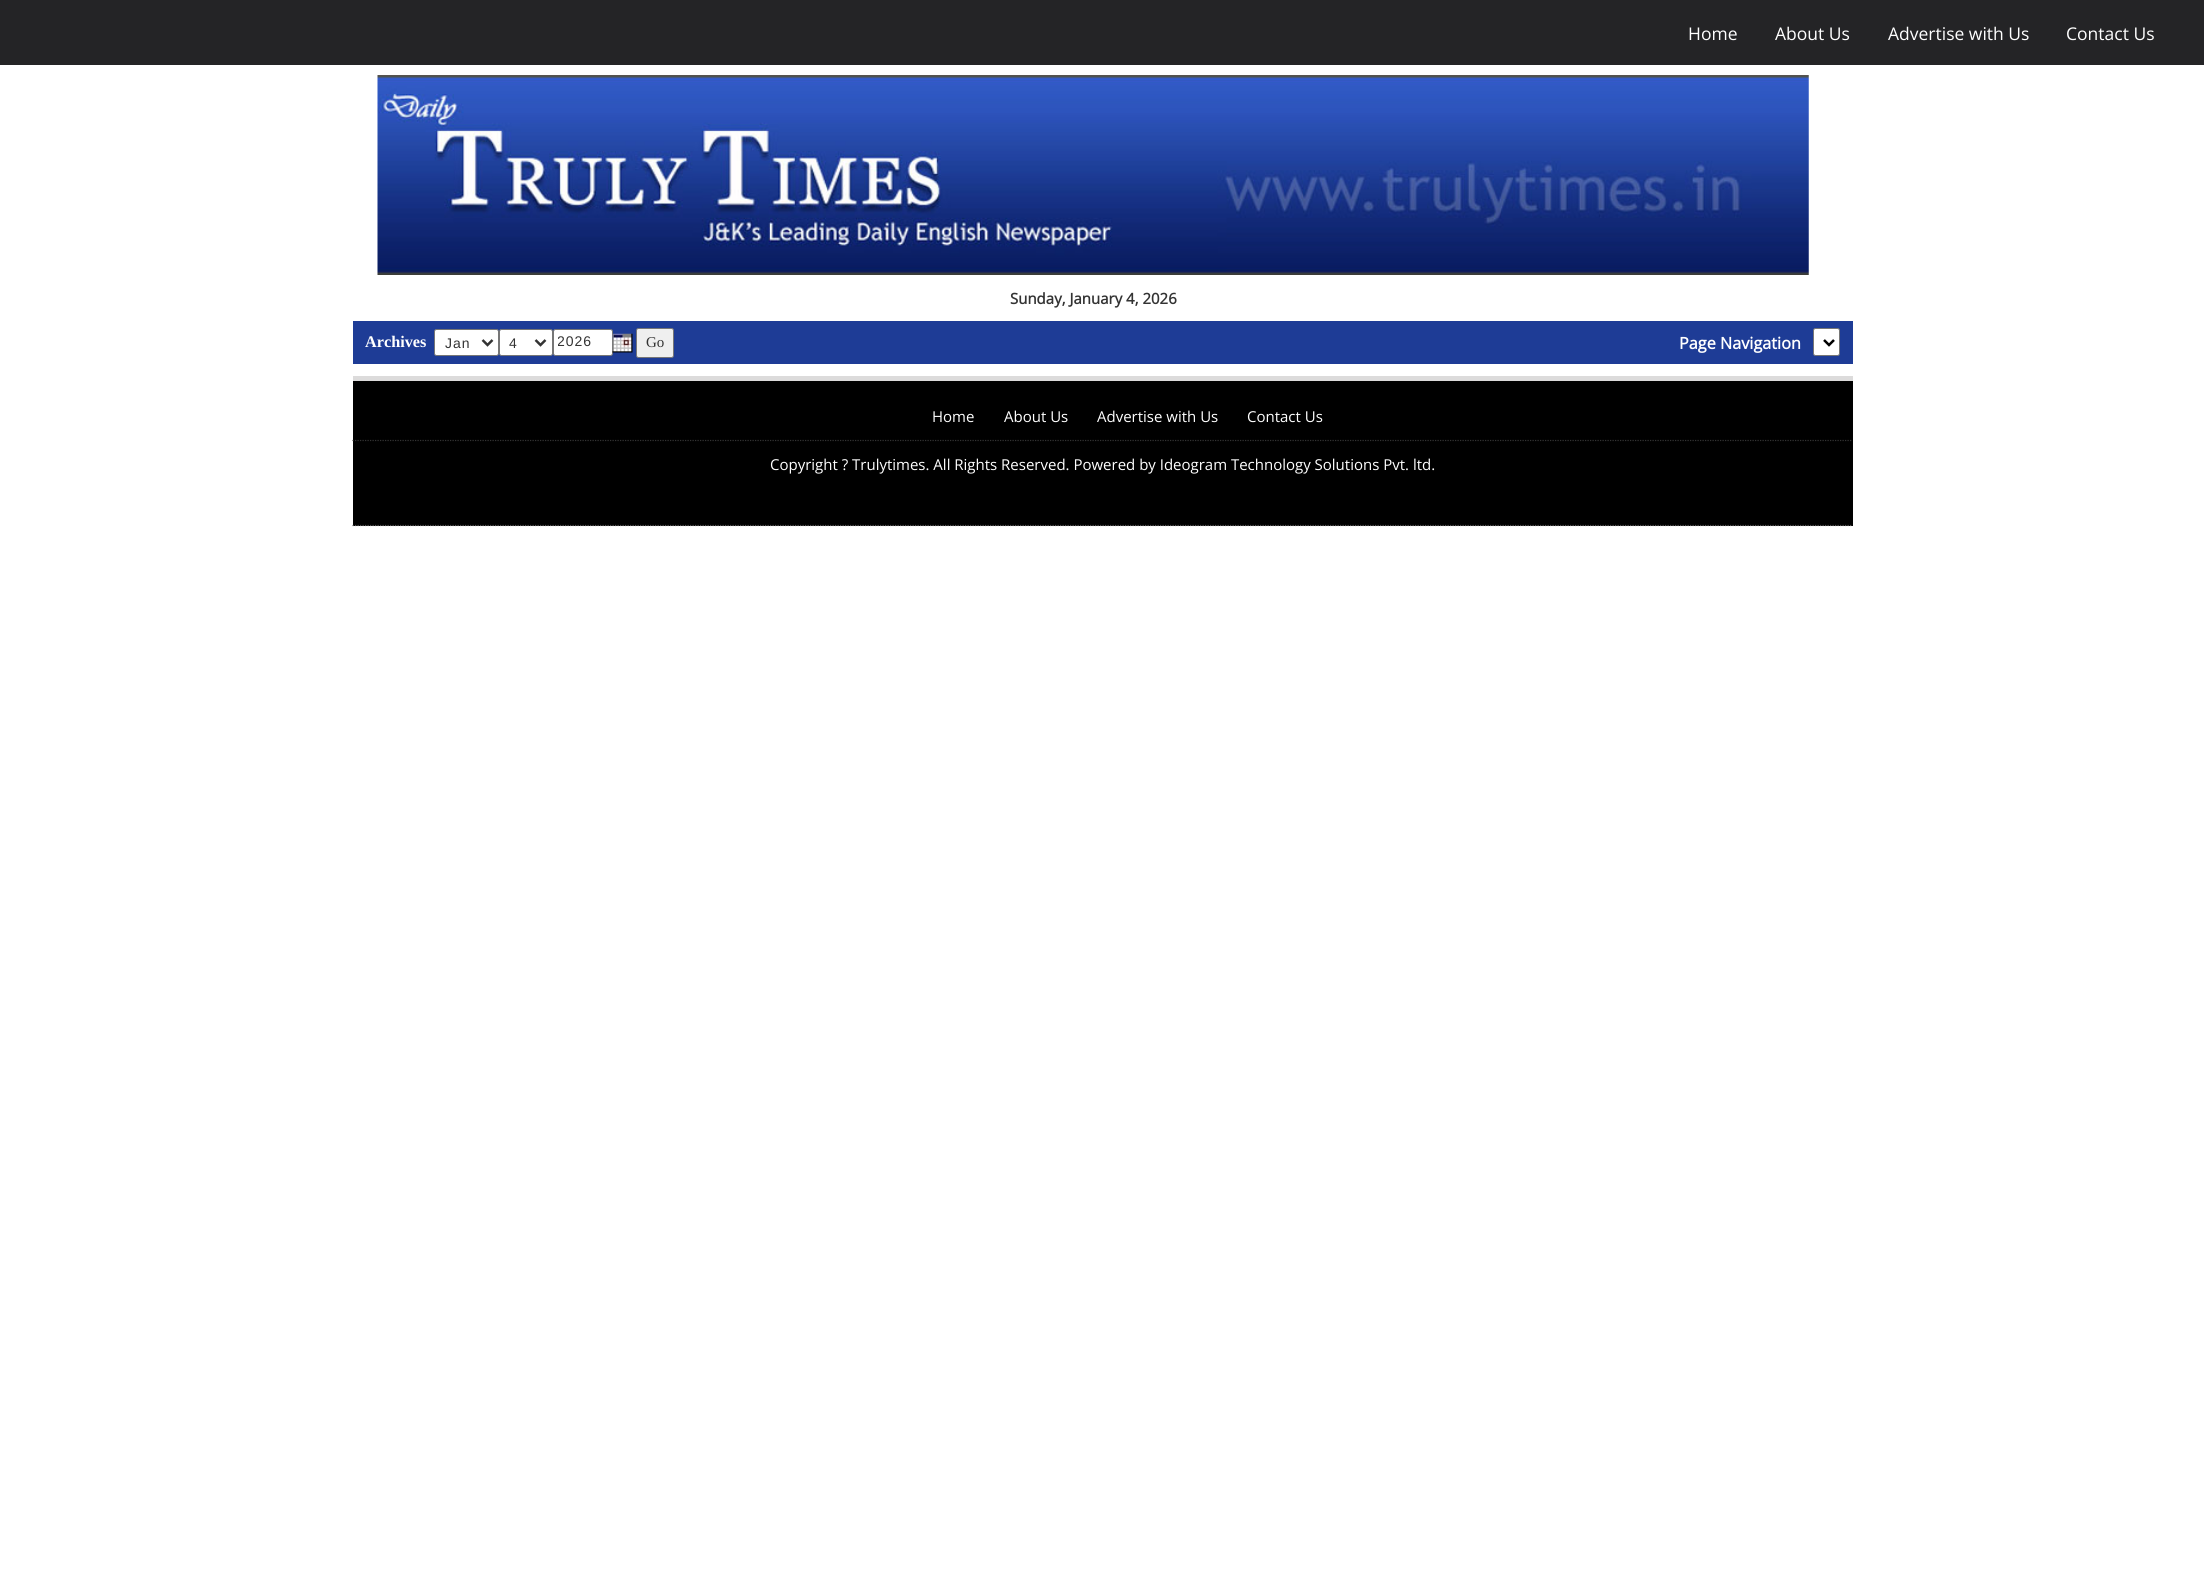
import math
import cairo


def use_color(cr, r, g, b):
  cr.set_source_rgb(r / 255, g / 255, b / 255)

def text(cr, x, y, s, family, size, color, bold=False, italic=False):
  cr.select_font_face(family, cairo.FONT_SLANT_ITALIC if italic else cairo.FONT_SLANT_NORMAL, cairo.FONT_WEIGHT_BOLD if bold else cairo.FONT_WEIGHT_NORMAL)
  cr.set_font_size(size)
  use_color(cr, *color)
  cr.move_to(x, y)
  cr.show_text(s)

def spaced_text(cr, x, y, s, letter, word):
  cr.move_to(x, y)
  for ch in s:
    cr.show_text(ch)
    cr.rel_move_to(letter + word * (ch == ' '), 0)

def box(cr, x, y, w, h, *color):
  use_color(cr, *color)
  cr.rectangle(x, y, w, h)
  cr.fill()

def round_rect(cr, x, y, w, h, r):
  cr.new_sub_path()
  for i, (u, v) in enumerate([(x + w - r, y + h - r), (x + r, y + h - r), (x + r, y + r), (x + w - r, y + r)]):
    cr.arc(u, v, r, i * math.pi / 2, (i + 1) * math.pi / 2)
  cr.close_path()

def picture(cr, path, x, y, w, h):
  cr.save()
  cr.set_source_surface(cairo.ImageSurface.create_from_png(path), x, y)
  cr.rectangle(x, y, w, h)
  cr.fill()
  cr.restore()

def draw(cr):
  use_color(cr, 255, 255, 255)
  cr.paint()
  box(cr, 0, 0, 2204, 65, 36, 36, 38)
  picture(cr, "img_01.png", 377, 75, 1432, 200)
  box(cr, 353, 321, 1500, 43, 30, 60, 150)
  use_color(cr, 255, 255, 255)
  round_rect(cr, 434.5, 329.5, 64, 26, 2)
  cr.fill_preserve()
  use_color(cr, 118, 118, 118)
  cr.set_line_width(1)
  cr.stroke()
  cr.new_path()
  cr.move_to(482.5, 340)
  cr.line_to(487.5, 345)
  cr.line_to(492.5, 340)
  use_color(cr, 51, 51, 51)
  cr.set_line_width(2.5)
  cr.stroke()
  use_color(cr, 255, 255, 255)
  round_rect(cr, 499.5, 329.5, 53, 26, 2)
  cr.fill_preserve()
  use_color(cr, 118, 118, 118)
  cr.set_line_width(1)
  cr.stroke()
  cr.new_path()
  cr.move_to(535.5, 340)
  cr.line_to(540.5, 345)
  cr.line_to(545.5, 340)
  use_color(cr, 51, 51, 51)
  cr.set_line_width(2.5)
  cr.stroke()
  use_color(cr, 255, 255, 255)
  round_rect(cr, 553.5, 329.5, 59, 26, 2)
  cr.fill_preserve()
  use_color(cr, 118, 118, 118)
  cr.set_line_width(1)
  cr.stroke()
  picture(cr, "img_02.png", 612, 333, 21, 20)
  use_color(cr, 239, 239, 239)
  round_rect(cr, 636.5, 328.5, 37, 29, 2)
  cr.fill_preserve()
  use_color(cr, 118, 118, 118)
  cr.stroke()
  use_color(cr, 255, 255, 255)
  round_rect(cr, 1813.5, 328.5, 26, 27, 2)
  cr.fill_preserve()
  use_color(cr, 118, 118, 118)
  cr.stroke()
  cr.new_path()
  cr.move_to(1824, 340)
  cr.line_to(1829, 345)
  cr.line_to(1834, 340)
  use_color(cr, 0, 0, 0)
  cr.set_line_width(2.5)
  cr.stroke()
  box(cr, 353, 376, 1500, 5, 220, 219, 219)
  box(cr, 353, 381, 1500, 145, 0, 0, 0)
  cr.new_path()
  cr.move_to(352.5, 525.5)
  cr.line_to(1852.5, 525.5)
  use_color(cr, 91, 90, 90)
  cr.set_line_width(1.2)
  cr.set_dash([1.25, 1.25])
  cr.stroke()
  cr.new_path()
  cr.move_to(352.5, 440.5)
  cr.line_to(1852.5, 440.5)
  use_color(cr, 51, 51, 51)
  cr.stroke()
  text(cr, 1688, 40, "Home", "Open Sans", 17.5, (255, 255, 255))
  text(cr, 1775, 40, "About Us", "Open Sans", 17.5, (255, 255, 255))
  text(cr, 1888, 40, "Advertise with Us", "Open Sans", 17.5, (255, 255, 255))
  text(cr, 2066, 40, "Contact Us", "Open Sans", 17.5, (255, 255, 255))
  text(cr, 1010, 304, "Sunday, January 4, 2026", "Open Sans", 15, (51, 51, 51), bold=True)
  text(cr, 365, 347, "Archives", "Liberation Serif", 16.25, (255, 255, 255), bold=True)
  cr.select_font_face("Liberation Sans")
  cr.set_font_size(14)
  use_color(cr, 51, 51, 51)
  spaced_text(cr, 445, 348, "Jan", 1, 0)
  spaced_text(cr, 509, 348, "4", 1, 0)
  cr.save()
  cr.rectangle(558, 333, 50, 20)
  cr.clip()
  spaced_text(cr, 557, 346, "2026", 1, 0)
  cr.restore()
  text(cr, 646, 347, "Go", "Liberation Serif", 15, (51, 51, 51))
  text(cr, 1679, 349, "Page Navigation", "Open Sans", 16.25, (255, 255, 255), bold=True)
  text(cr, 932, 422, "Home", "Open Sans", 15, (255, 255, 255))
  text(cr, 1004, 422, "About Us", "Open Sans", 15, (255, 255, 255))
  text(cr, 1097, 422, "Advertise with Us", "Open Sans", 15, (255, 255, 255))
  text(cr, 1247, 422, "Contact Us", "Open Sans", 15, (255, 255, 255))
  text(cr, 770, 470, "Copyright ? Trulytimes. All Rights Reserved. Powered by Ideogram Technology Solutions Pvt. ltd.", "Open Sans", 15, (255, 255, 255))


surface = cairo.ImageSurface(cairo.FORMAT_RGB24, 2204, 1593)
cr = cairo.Context(surface)
options = cairo.FontOptions()
options.set_hint_metrics(cairo.HINT_METRICS_OFF)
options.set_hint_style(cairo.HINT_STYLE_NONE)
cr.set_font_options(options)
cr.set_miter_limit(4)
draw(cr)
surface.write_to_png("out.png")
